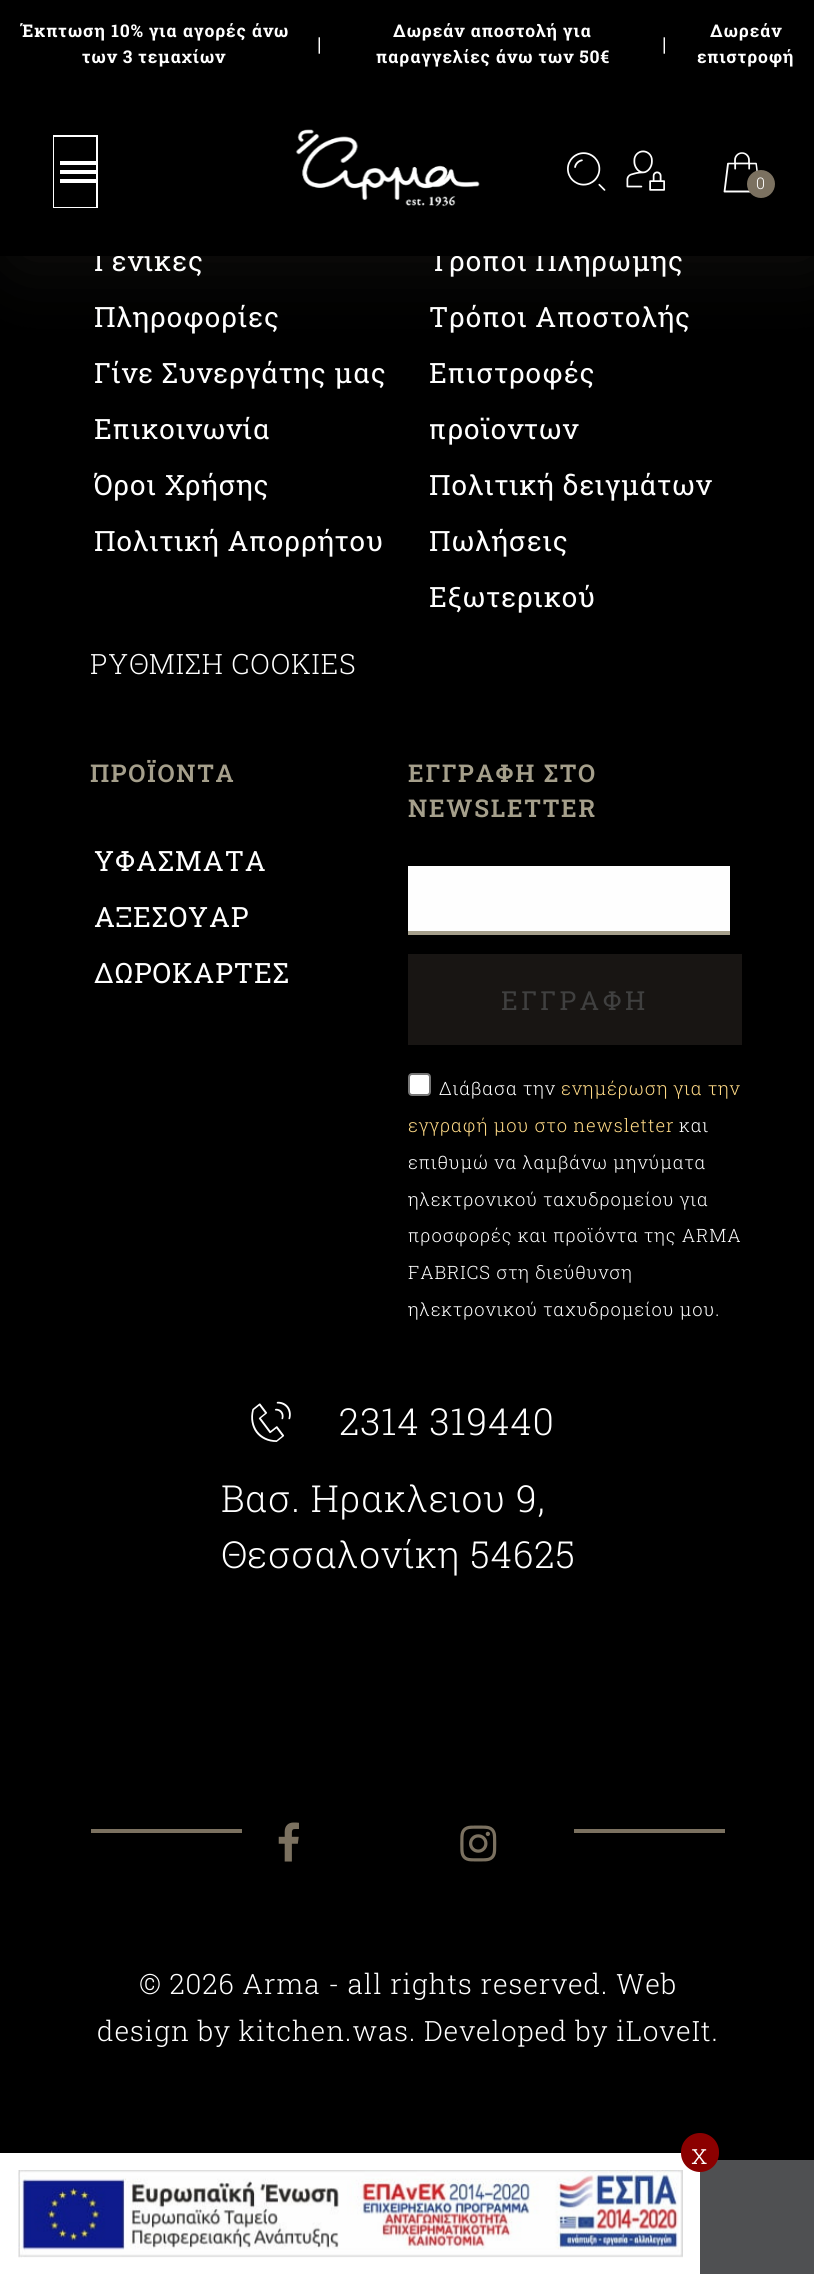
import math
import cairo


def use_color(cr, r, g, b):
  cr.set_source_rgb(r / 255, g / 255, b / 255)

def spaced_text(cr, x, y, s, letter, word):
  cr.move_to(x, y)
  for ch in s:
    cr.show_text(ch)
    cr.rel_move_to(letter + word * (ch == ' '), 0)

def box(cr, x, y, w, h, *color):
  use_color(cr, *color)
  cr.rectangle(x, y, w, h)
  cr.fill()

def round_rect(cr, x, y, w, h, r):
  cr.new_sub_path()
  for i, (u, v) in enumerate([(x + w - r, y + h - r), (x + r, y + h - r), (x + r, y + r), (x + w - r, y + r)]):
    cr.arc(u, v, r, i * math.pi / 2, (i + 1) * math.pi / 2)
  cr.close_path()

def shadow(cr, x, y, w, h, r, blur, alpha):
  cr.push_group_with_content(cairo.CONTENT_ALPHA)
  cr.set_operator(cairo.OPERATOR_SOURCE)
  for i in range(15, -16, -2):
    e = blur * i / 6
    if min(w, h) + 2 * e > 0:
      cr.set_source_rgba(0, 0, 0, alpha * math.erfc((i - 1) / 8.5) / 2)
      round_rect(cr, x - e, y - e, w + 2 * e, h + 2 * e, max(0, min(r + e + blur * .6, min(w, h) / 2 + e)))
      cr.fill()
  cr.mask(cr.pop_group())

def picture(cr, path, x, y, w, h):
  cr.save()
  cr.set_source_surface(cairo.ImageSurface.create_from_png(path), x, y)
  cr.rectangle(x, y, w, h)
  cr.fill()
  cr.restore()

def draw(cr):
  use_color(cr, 79, 80, 82)
  cr.paint()
  box(cr, 0, 256, 814, 1904, 0, 0, 0)
  use_color(cr, 105, 96, 82)
  shadow(cr, 18, 18, 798, 238, 0, 39.5, 0.2)
  box(cr, 408, 866, 322, 65, 254, 254, 254)
  box(cr, 408, 931, 322, 4, 165, 159, 139)
  box(cr, 408, 954, 334, 91, 24, 21, 19)
  use_color(cr, 255, 255, 255)
  round_rect(cr, 409, 1074, 21, 21, 3)
  cr.fill_preserve()
  use_color(cr, 118, 118, 118)
  cr.stroke()
  picture(cr, "img_05.png", 251, 1401, 40, 41)
  box(cr, 91, 1829, 634, 4, 123, 113, 96)
  box(cr, 242, 1829, 332, 4, 0, 0, 0)
  picture(cr, "img_06.png", 278, 1822, 21, 40)
  picture(cr, "img_07.png", 460, 1825, 37, 37)
  box(cr, 0, 2153, 700, 121, 255, 255, 255)
  picture(cr, "img_08.png", 18, 2170, 665, 88)
  use_color(cr, 139, 0, 0)
  round_rect(cr, 682, 2134, 36, 37, 18)
  cr.fill_preserve()
  cr.stroke()
  cr.select_font_face("Roboto Slab")
  cr.set_font_size(28)
  use_color(cr, 255, 255, 255)
  spaced_text(cr, 94, 271, "Γενικές", 0.9, 0)
  spaced_text(cr, 94, 327, "Πληροφορίες", 0.9, 0)
  spaced_text(cr, 94, 383, "Γίνε Συνεργάτης μας", 0.9, 0)
  spaced_text(cr, 94, 439, "Επικοινωνία", 0.9, 0)
  spaced_text(cr, 94, 495, "Όροι Χρήσης", 0.9, 0)
  spaced_text(cr, 94, 551, "Πολιτική Απορρήτου", 0.9, 0)
  cr.select_font_face("Roboto Slab Light")
  spaced_text(cr, 90, 674, "ΡΥΘΜΙΣΗ COOKIES", 0.9, 0)
  cr.select_font_face("Roboto Slab")
  spaced_text(cr, 429, 271, "Τρόποι Πληρωμής", 0.9, 0)
  box(cr, 0, 0, 814, 256, 0, 0, 0)
  cr.select_font_face("Roboto Slab", cairo.FONT_SLANT_NORMAL, cairo.FONT_WEIGHT_BOLD)
  cr.set_font_size(17.5)
  use_color(cr, 255, 255, 255)
  spaced_text(cr, 697, 63, "επιστροφή", 0.9, 0)
  spaced_text(cr, 710, 37, "Δωρεάν", 0.9, 0)
  cr.select_font_face("Liberation Sans")
  spaced_text(cr, 662, 50, "|", 0.9, 0)
  cr.select_font_face("Roboto Slab", cairo.FONT_SLANT_NORMAL, cairo.FONT_WEIGHT_BOLD)
  spaced_text(cr, 376, 63, "παραγγελίες άνω των 50€", 0.9, 0)
  spaced_text(cr, 393, 37, "Δωρεάν αποστολή για", 0.9, 0)
  cr.select_font_face("Liberation Sans")
  spaced_text(cr, 317, 50, "|", 0.9, 0)
  cr.select_font_face("Roboto Slab", cairo.FONT_SLANT_NORMAL, cairo.FONT_WEIGHT_BOLD)
  spaced_text(cr, 82, 63, "των 3 τεμαχίων", 0.9, 0)
  spaced_text(cr, 20, 37, "Έκπτωση 10% για αγορές άνω", 0.9, 0)
  picture(cr, "img_04.png", 723, 152, 35, 41)
  use_color(cr, 123, 113, 96)
  cr.arc(761, 184, 14, 0, 2 * math.pi)
  cr.fill()
  cr.select_font_face("Roboto Slab Light")
  cr.set_font_size(16)
  use_color(cr, 255, 255, 255)
  spaced_text(cr, 756, 189, "0", 0.9, 0)
  picture(cr, "img_03.png", 626, 150, 39, 41)
  picture(cr, "img_02.png", 567, 152, 39, 39)
  picture(cr, "img_01.png", 295, 129, 185, 78)
  cr.rectangle(54, 136, 43, 71)
  cr.stroke()
  box(cr, 54, 137, 42, 70, 0, 0, 0)
  box(cr, 60, 179, 38, 4, 255, 255, 255)
  box(cr, 60, 161, 38, 4, 255, 255, 255)
  box(cr, 60, 170, 38, 4, 255, 255, 255)
  cr.select_font_face("Roboto Slab")
  cr.set_font_size(28)
  spaced_text(cr, 429, 327, "Τρόποι Αποστολής", 0.9, 0)
  spaced_text(cr, 429, 383, "Επιστροφές", 0.9, 0)
  spaced_text(cr, 429, 439, "προϊοντων", 0.9, 0)
  spaced_text(cr, 429, 495, "Πολιτική δειγμάτων", 0.9, 0)
  spaced_text(cr, 429, 551, "Πωλήσεις", 0.9, 0)
  spaced_text(cr, 429, 607, "Εξωτερικού", 0.9, 0)
  cr.select_font_face("Roboto Slab SemiBold")
  cr.set_font_size(24.5)
  use_color(cr, 165, 159, 139)
  spaced_text(cr, 90, 782, "ΠΡΟΪΟΝΤΑ", 1.75, 0)
  cr.select_font_face("Roboto Slab")
  cr.set_font_size(28)
  use_color(cr, 255, 255, 255)
  spaced_text(cr, 94, 871, "ΥΦΑΣΜΑΤΑ", 0.9, 0)
  spaced_text(cr, 94, 927, "ΑΞΕΣΟΥΑΡ", 0.9, 0)
  spaced_text(cr, 94, 983, "ΔΩΡΟΚΑΡΤΕΣ", 0.9, 0)
  cr.select_font_face("Roboto Slab SemiBold")
  cr.set_font_size(24.5)
  use_color(cr, 165, 159, 139)
  spaced_text(cr, 408, 782, "ΕΓΓΡΑΦΗ ΣΤΟ", 1.75, 0)
  spaced_text(cr, 408, 817, "NEWSLETTER", 1.75, 0)
  cr.select_font_face("Roboto Slab")
  cr.set_font_size(26.25)
  use_color(cr, 64, 64, 64)
  spaced_text(cr, 501, 1010, "ΕΓΓΡΑΦΗ", 3.5, 0)
  cr.select_font_face("Roboto Slab Light")
  cr.set_font_size(18.4)
  use_color(cr, 255, 255, 255)
  spaced_text(cr, 439, 1095, "Διάβασα την", 0.9, 0)
  use_color(cr, 255, 218, 134)
  spaced_text(cr, 561, 1095, "ενημέρωση για την", 0.9, 0)
  spaced_text(cr, 408, 1132, "εγγραφή μου στο newsletter", 0.9, 0)
  use_color(cr, 255, 255, 255)
  spaced_text(cr, 679, 1132, "και", 0.9, 0)
  spaced_text(cr, 408, 1169, "επιθυμώ να λαμβάνω μηνύματα", 0.9, 0)
  spaced_text(cr, 408, 1206, "ηλεκτρονικού ταχυδρομείου για", 0.9, 0)
  spaced_text(cr, 408, 1242, "προσφορές και προϊόντα της ARMA", 0.9, 0)
  spaced_text(cr, 408, 1279, "FABRICS στη διεύθυνση", 0.9, 0)
  spaced_text(cr, 408, 1316, "ηλεκτρονικού ταχυδρομείου μου.", 0.9, 0)
  cr.set_font_size(37.25)
  spaced_text(cr, 339, 1435, "2314 319440", 0.9, 0)
  spaced_text(cr, 221, 1512, "Βασ. Ηρακλειου 9,", 0.9, 0)
  spaced_text(cr, 221, 1568, "Θεσσαλονίκη 54625", 0.9, 0)
  cr.set_font_size(28)
  spaced_text(cr, 139, 1994, "© 2026 Arma - all rights reserved. Web", 0.9, 0)
  spaced_text(cr, 97, 2041, "design by kitchen.was. Developed by iLoveIt.", 0.9, 0)
  spaced_text(cr, 691, 2164, "x", 0.9, 0)


surface = cairo.ImageSurface(cairo.FORMAT_RGB24, 814, 2274)
cr = cairo.Context(surface)
options = cairo.FontOptions()
options.set_hint_metrics(cairo.HINT_METRICS_OFF)
options.set_hint_style(cairo.HINT_STYLE_NONE)
cr.set_font_options(options)
cr.set_miter_limit(4)
draw(cr)
surface.write_to_png("out.png")
